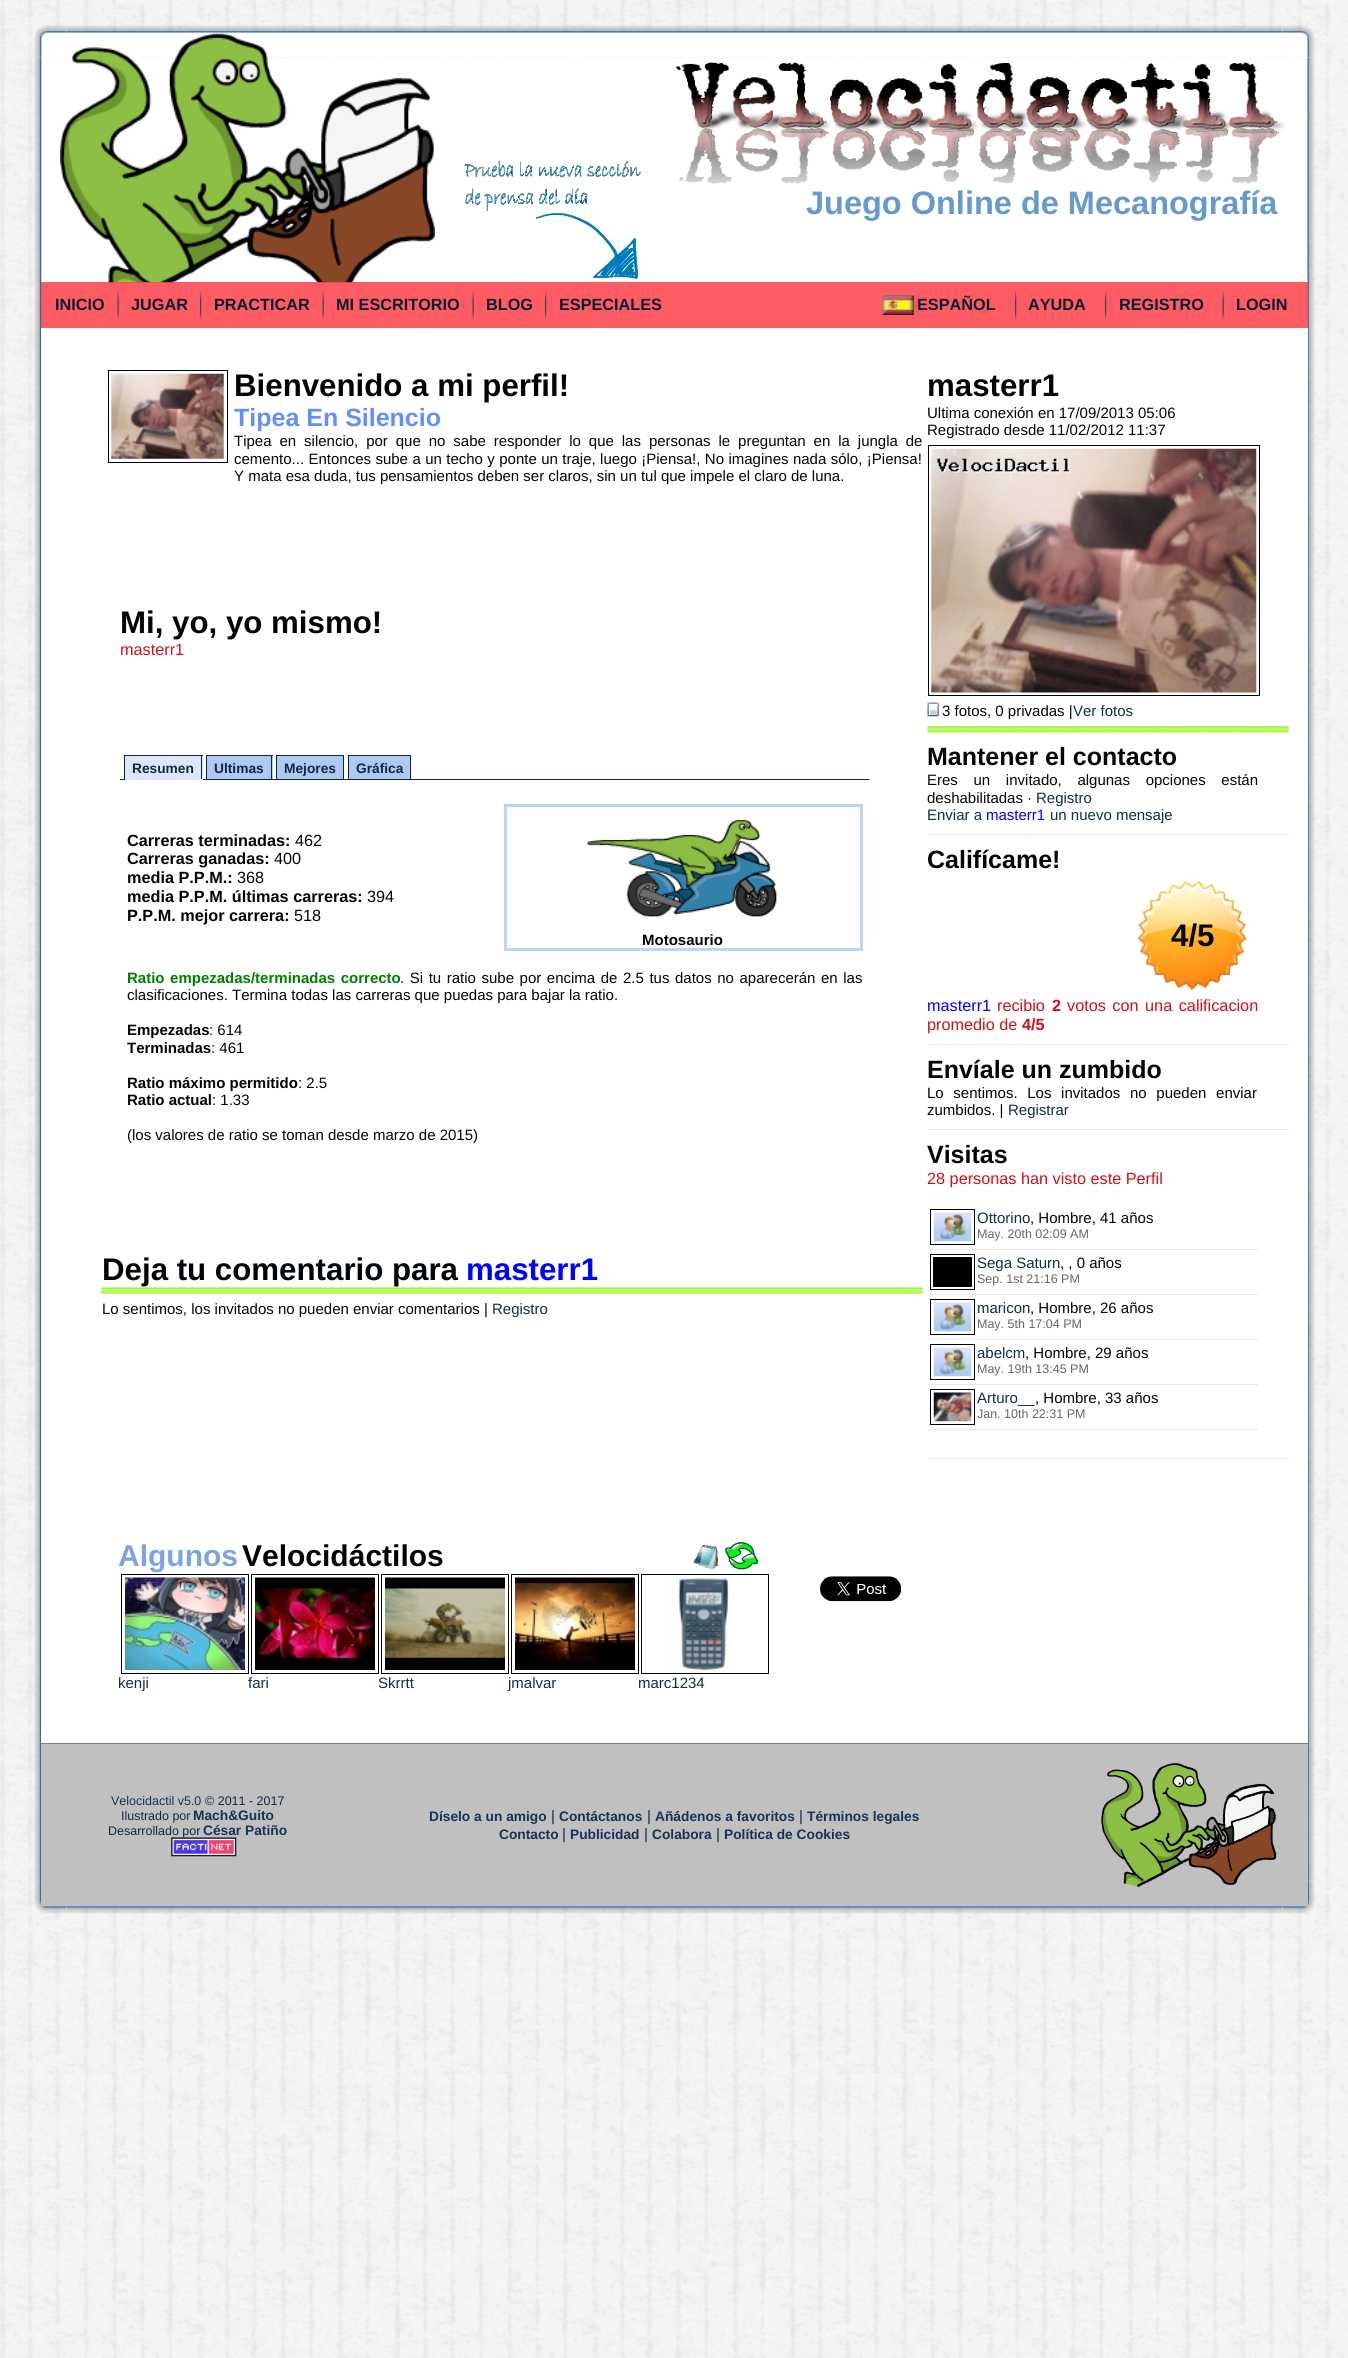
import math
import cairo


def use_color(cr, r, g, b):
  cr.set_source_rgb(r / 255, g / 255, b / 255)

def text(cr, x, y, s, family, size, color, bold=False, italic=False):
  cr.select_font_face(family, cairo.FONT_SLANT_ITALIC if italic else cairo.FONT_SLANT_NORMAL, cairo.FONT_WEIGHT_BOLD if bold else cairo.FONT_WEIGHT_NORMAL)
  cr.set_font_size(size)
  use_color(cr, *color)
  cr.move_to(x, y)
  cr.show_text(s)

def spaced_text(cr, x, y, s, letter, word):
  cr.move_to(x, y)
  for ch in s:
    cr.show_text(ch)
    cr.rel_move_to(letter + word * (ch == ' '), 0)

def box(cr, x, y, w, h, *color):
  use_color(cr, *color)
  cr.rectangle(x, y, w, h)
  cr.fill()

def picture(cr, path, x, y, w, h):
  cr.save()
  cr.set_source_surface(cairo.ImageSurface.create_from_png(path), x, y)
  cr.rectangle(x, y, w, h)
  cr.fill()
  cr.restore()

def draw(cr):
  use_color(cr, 255, 255, 255)
  cr.paint()
  picture(cr, "img_01.png", 0, 0, 1348, 2358)
  picture(cr, "img_02.png", 34, 25, 33, 33)
  picture(cr, "img_04.png", 1282, 25, 33, 33)
  picture(cr, "img_03.png", 66, 25, 1217, 33)
  picture(cr, "img_32.png", 34, 1881, 33, 33)
  picture(cr, "img_05.png", 34, 57, 33, 1825)
  picture(cr, "img_06.png", 1282, 57, 33, 1824)
  box(cr, 66, 58, 1217, 270, 255, 255, 255)
  picture(cr, "img_07.png", 464, 160, 177, 119)
  picture(cr, "img_08.png", 60, 33, 375, 250)
  picture(cr, "img_09.png", 676, 62, 609, 122)
  cr.set_source_rgba(1, 0.2, 0.239, 0.8)
  cr.rectangle(41, 282, 1267, 46)
  cr.fill()
  picture(cr, "img_10.png", 117, 291, 2, 29)
  picture(cr, "img_11.png", 200, 291, 2, 29)
  picture(cr, "img_10.png", 322, 291, 2, 29)
  picture(cr, "img_10.png", 472, 291, 2, 29)
  picture(cr, "img_11.png", 545, 291, 2, 29)
  picture(cr, "img_12.png", 882, 295, 32, 20)
  picture(cr, "img_11.png", 1015, 291, 2, 29)
  picture(cr, "img_11.png", 1105, 291, 2, 29)
  picture(cr, "img_10.png", 1222, 291, 2, 29)
  box(cr, 41, 328, 1267, 1415, 255, 255, 255)
  cr.rectangle(108.5, 370.5, 119, 92)
  use_color(cr, 0, 0, 0)
  cr.set_line_width(1)
  cr.stroke()
  picture(cr, "img_13.png", 111, 373, 113, 86)
  box(cr, 120, 779, 749, 1, 16, 39, 65)
  box(cr, 125, 756, 78, 23, 220, 230, 255)
  box(cr, 124, 755, 79, 1, 16, 39, 65)
  box(cr, 201, 755, 1, 25, 16, 39, 65)
  box(cr, 124, 779, 79, 1, 220, 230, 255)
  box(cr, 124, 755, 1, 25, 16, 39, 65)
  box(cr, 207, 756, 66, 23, 174, 201, 244)
  box(cr, 206, 755, 67, 1, 16, 39, 65)
  box(cr, 271, 755, 1, 24, 16, 39, 65)
  box(cr, 206, 755, 1, 24, 16, 39, 65)
  box(cr, 277, 756, 66, 23, 174, 201, 244)
  box(cr, 276, 755, 68, 1, 16, 39, 65)
  box(cr, 343, 755, 1, 24, 16, 39, 65)
  box(cr, 276, 755, 1, 24, 16, 39, 65)
  box(cr, 349, 756, 61, 23, 174, 201, 244)
  box(cr, 348, 755, 63, 1, 16, 39, 65)
  box(cr, 410, 755, 1, 24, 16, 39, 65)
  box(cr, 348, 755, 1, 24, 16, 39, 65)
  cr.rectangle(505.5, 805.5, 356, 144)
  use_color(cr, 187, 212, 249)
  cr.set_line_width(3)
  cr.stroke()
  picture(cr, "img_14.png", 587, 819, 190, 98)
  picture(cr, "img_15.png", 101, 1287, 822, 7)
  cr.rectangle(928.5, 445.5, 331, 250)
  use_color(cr, 0, 0, 0)
  cr.set_line_width(1)
  cr.stroke()
  picture(cr, "img_16.png", 931, 448, 326, 245)
  picture(cr, "img_17.png", 927, 702, 12, 15)
  picture(cr, "img_18.png", 927, 726, 362, 7)
  box(cr, 928, 834, 361, 1, 229, 233, 236)
  picture(cr, "img_19.png", 1137, 881, 110, 110)
  box(cr, 928, 1044, 361, 1, 229, 233, 236)
  box(cr, 928, 1129, 361, 1, 229, 233, 236)
  box(cr, 928, 1249, 330, 1, 229, 233, 236)
  cr.rectangle(930.5, 1209.5, 44, 35)
  use_color(cr, 0, 0, 0)
  cr.stroke()
  picture(cr, "img_20.png", 933, 1212, 39, 30)
  box(cr, 928, 1294, 330, 1, 229, 233, 236)
  cr.rectangle(930.5, 1254.5, 44, 35)
  use_color(cr, 0, 0, 0)
  cr.stroke()
  box(cr, 933, 1257, 39, 30, 0, 0, 0)
  box(cr, 928, 1339, 330, 1, 229, 233, 236)
  cr.rectangle(930.5, 1299.5, 44, 35)
  use_color(cr, 0, 0, 0)
  cr.stroke()
  picture(cr, "img_20.png", 933, 1302, 39, 30)
  box(cr, 928, 1384, 330, 1, 229, 233, 236)
  cr.rectangle(930.5, 1344.5, 44, 35)
  use_color(cr, 0, 0, 0)
  cr.stroke()
  picture(cr, "img_20.png", 933, 1347, 39, 30)
  box(cr, 928, 1429, 330, 1, 229, 233, 236)
  cr.rectangle(930.5, 1389.5, 44, 35)
  use_color(cr, 0, 0, 0)
  cr.stroke()
  picture(cr, "img_21.png", 933, 1392, 39, 30)
  box(cr, 928, 1458, 361, 1, 229, 233, 236)
  picture(cr, "img_22.png", 693, 1545, 26, 25)
  picture(cr, "img_23.png", 725, 1542, 33, 28)
  cr.rectangle(121.5, 1574.5, 127, 99)
  use_color(cr, 0, 0, 0)
  cr.stroke()
  picture(cr, "img_24.png", 125, 1577, 120, 93)
  cr.rectangle(251.5, 1574.5, 127, 99)
  cr.stroke()
  picture(cr, "img_25.png", 255, 1577, 120, 93)
  cr.rectangle(381.5, 1574.5, 127, 99)
  cr.stroke()
  picture(cr, "img_26.png", 385, 1577, 120, 93)
  cr.rectangle(511.5, 1574.5, 127, 99)
  cr.stroke()
  picture(cr, "img_27.png", 515, 1577, 120, 93)
  cr.rectangle(641.5, 1574.5, 127, 99)
  cr.stroke()
  picture(cr, "img_28.png", 670, 1577, 61, 93)
  picture(cr, "img_29.png", 820, 1576, 82, 26)
  picture(cr, "img_34.png", 1282, 1881, 33, 33)
  box(cr, 41, 1744, 1267, 162, 192, 192, 192)
  box(cr, 41, 1743, 1267, 1, 128, 128, 128)
  picture(cr, "img_31.png", 1101, 1763, 176, 124)
  picture(cr, "img_33.png", 66, 1906, 1217, 8)
  text(cr, 806, 214, "Juego Online de Mecanografía", "Liberation Sans", 32.5, (102, 154, 204), bold=True)
  text(cr, 55, 310, "INICIO", "Liberation Sans", 16.25, (12, 29, 49), bold=True)
  text(cr, 131, 310, "JUGAR", "Liberation Sans", 16.25, (12, 29, 49), bold=True)
  text(cr, 214, 310, "PRACTICAR", "Liberation Sans", 16.25, (12, 29, 49), bold=True)
  text(cr, 336, 310, "MI ESCRITORIO", "Liberation Sans", 16.25, (12, 29, 49), bold=True)
  text(cr, 486, 310, "BLOG", "Liberation Sans", 16.25, (12, 29, 49), bold=True)
  text(cr, 559, 310, "ESPECIALES", "Liberation Sans", 16.25, (12, 29, 49), bold=True)
  text(cr, 917, 310, "ESPAÑOL", "Liberation Sans", 16.25, (12, 29, 49), bold=True)
  text(cr, 1028, 310, "AYUDA", "Liberation Sans", 16.25, (12, 29, 49), bold=True)
  text(cr, 1119, 310, "REGISTRO", "Liberation Sans", 16.25, (12, 29, 49), bold=True)
  text(cr, 1236, 310, "LOGIN", "Liberation Sans", 16.25, (12, 29, 49), bold=True)
  text(cr, 234, 396, "Bienvenido a mi perfil!", "Liberation Sans", 31.25, (2, 5, 8), bold=True)
  text(cr, 234, 426, "Tipea En Silencio", "Liberation Sans", 25, (101, 142, 253), bold=True)
  cr.select_font_face("Liberation Sans")
  cr.set_font_size(15)
  use_color(cr, 2, 5, 8)
  spaced_text(cr, 234, 446, "Tipea en silencio, por que no sabe responder lo que las personas le preguntan en la jungla de", 0, 3.75)
  spaced_text(cr, 234, 464, "cemento... Entonces sube a un techo y ponte un traje, luego ¡Piensa!, No imagines nada sólo, ¡Piensa!", 0, 0.25)
  text(cr, 234, 481, "Y mata esa duda, tus pensamientos deben ser claros, sin un tul que impele el claro de luna.", "Liberation Sans", 15, (2, 5, 8))
  text(cr, 120, 633, "Mi, yo, yo mismo!", "Liberation Sans", 31.25, (2, 5, 8), bold=True)
  text(cr, 120, 655, "masterr1", "Liberation Sans", 16.25, (206, 16, 25))
  text(cr, 132, 773, "Resumen", "Liberation Sans", 13.75, (16, 39, 65), bold=True)
  text(cr, 214, 773, "Ultimas", "Liberation Sans", 13.75, (16, 39, 65), bold=True)
  text(cr, 284, 773, "Mejores", "Liberation Sans", 13.75, (16, 39, 65), bold=True)
  text(cr, 356, 773, "Gráfica", "Liberation Sans", 13.75, (16, 39, 65), bold=True)
  text(cr, 127, 846, "Carreras terminadas:", "Liberation Sans", 16.25, (2, 5, 8), bold=True)
  text(cr, 295, 846, "462", "Liberation Sans", 16.25, (2, 5, 8))
  text(cr, 127, 864, "Carreras ganadas:", "Liberation Sans", 16.25, (2, 5, 8), bold=True)
  text(cr, 274, 864, "400", "Liberation Sans", 16.25, (2, 5, 8))
  text(cr, 127, 883, "media P.P.M.:", "Liberation Sans", 16.25, (2, 5, 8), bold=True)
  text(cr, 237, 883, "368", "Liberation Sans", 16.25, (2, 5, 8))
  text(cr, 127, 902, "media P.P.M. últimas carreras:", "Liberation Sans", 16.25, (2, 5, 8), bold=True)
  text(cr, 367, 902, "394", "Liberation Sans", 16.25, (2, 5, 8))
  text(cr, 127, 921, "P.P.M. mejor carrera:", "Liberation Sans", 16.25, (2, 5, 8), bold=True)
  text(cr, 294, 921, "518", "Liberation Sans", 16.25, (2, 5, 8))
  text(cr, 642, 945, "Motosaurio", "Liberation Sans", 15, (2, 5, 8), bold=True)
  use_color(cr, 0, 128, 0)
  spaced_text(cr, 127, 983, "Ratio empezadas/terminadas correcto", 0, 1.4)
  cr.select_font_face("Liberation Sans")
  use_color(cr, 2, 5, 8)
  spaced_text(cr, 400, 983, ". Si tu ratio sube por encima de 2.5 tus datos no aparecerán en las", 0, 1.4)
  text(cr, 127, 1000, "clasificaciones. Termina todas las carreras que puedas para bajar la ratio.", "Liberation Sans", 15, (2, 5, 8))
  text(cr, 127, 1035, "Empezadas", "Liberation Sans", 15, (2, 5, 8), bold=True)
  text(cr, 209, 1035, ": 614", "Liberation Sans", 15, (2, 5, 8))
  text(cr, 127, 1053, "Terminadas", "Liberation Sans", 15, (2, 5, 8), bold=True)
  text(cr, 211, 1053, ": 461", "Liberation Sans", 15, (2, 5, 8))
  text(cr, 127, 1088, "Ratio máximo permitido", "Liberation Sans", 15, (2, 5, 8), bold=True)
  text(cr, 298, 1088, ": 2.5", "Liberation Sans", 15, (2, 5, 8))
  text(cr, 127, 1105, "Ratio actual", "Liberation Sans", 15, (2, 5, 8), bold=True)
  text(cr, 212, 1105, ": 1.33", "Liberation Sans", 15, (2, 5, 8))
  text(cr, 127, 1140, "(los valores de ratio se toman desde marzo de 2015)", "Liberation Sans", 15, (2, 5, 8))
  text(cr, 102, 1280, "Deja tu comentario para", "Liberation Sans", 31.25, (2, 5, 8), bold=True)
  text(cr, 466, 1280, "masterr1", "Liberation Sans", 31.25, (0, 0, 255), bold=True)
  text(cr, 102, 1314, "Lo sentimos, los invitados no pueden enviar comentarios |", "Liberation Sans", 15, (2, 5, 8))
  text(cr, 492, 1314, "Registro", "Liberation Sans", 15, (18, 44, 73))
  text(cr, 927, 396, "masterr1", "Liberation Sans", 31.25, (2, 5, 8), bold=True)
  text(cr, 927, 418, "Ultima conexión en 17/09/2013 05:06", "Liberation Sans", 15, (2, 5, 8))
  text(cr, 927, 435, "Registrado desde 11/02/2012 11:37", "Liberation Sans", 15, (2, 5, 8))
  text(cr, 942, 716, "3 fotos, 0 privadas |", "Liberation Sans", 15, (2, 5, 8))
  text(cr, 1073, 716, "Ver fotos", "Liberation Sans", 15, (18, 44, 73))
  text(cr, 927, 765, "Mantener el contacto", "Liberation Sans", 25, (2, 5, 8), bold=True)
  cr.select_font_face("Liberation Sans")
  cr.set_font_size(15)
  spaced_text(cr, 927, 785, "Eres un invitado, algunas opciones están", 0, 11.5)
  text(cr, 927, 803, "deshabilitadas ·", "Liberation Sans", 15, (2, 5, 8))
  text(cr, 1036, 803, "Registro", "Liberation Sans", 15, (18, 44, 73))
  text(cr, 927, 820, "Enviar a", "Liberation Sans", 15, (18, 44, 73))
  text(cr, 986, 820, "masterr1", "Liberation Sans", 15, (0, 0, 255))
  text(cr, 1050, 820, "un nuevo mensaje", "Liberation Sans", 15, (18, 44, 73))
  text(cr, 927, 868, "Califícame!", "Liberation Sans", 25, (2, 5, 8), bold=True)
  text(cr, 1171, 946, "4/5", "Liberation Sans", 31.25, (2, 5, 8), bold=True)
  text(cr, 927, 1011, "masterr1", "Liberation Sans", 16.25, (0, 0, 255))
  text(cr, 997, 1011, "recibio", "Liberation Sans", 16.25, (206, 16, 25))
  text(cr, 1052, 1011, "2", "Liberation Sans", 16.25, (206, 16, 25), bold=True)
  cr.select_font_face("Liberation Sans")
  spaced_text(cr, 1067, 1011, "votos con una calificacion", 0, 2)
  text(cr, 927, 1030, "promedio de", "Liberation Sans", 16.25, (206, 16, 25))
  text(cr, 1022, 1030, "4/5", "Liberation Sans", 16.25, (206, 16, 25), bold=True)
  text(cr, 927, 1078, "Envíale un zumbido", "Liberation Sans", 25, (2, 5, 8), bold=True)
  cr.select_font_face("Liberation Sans")
  cr.set_font_size(15)
  spaced_text(cr, 927, 1098, "Lo sentimos. Los invitados no pueden enviar", 0, 5.5)
  text(cr, 927, 1115, "zumbidos. |", "Liberation Sans", 15, (2, 5, 8))
  text(cr, 1008, 1115, "Registrar", "Liberation Sans", 15, (18, 44, 73))
  text(cr, 927, 1163, "Visitas", "Liberation Sans", 25, (2, 5, 8), bold=True)
  text(cr, 927, 1184, "28 personas han visto este Perfil", "Liberation Sans", 16.25, (206, 16, 25))
  text(cr, 977, 1223, "Ottorino", "Liberation Sans", 15, (18, 44, 73))
  text(cr, 1030, 1223, ", Hombre, 41 años", "Liberation Sans", 15, (2, 5, 8))
  text(cr, 977, 1238, "May. 20th 02:09 AM", "Liberation Sans", 12.5, (102, 102, 102))
  text(cr, 977, 1268, "Sega Saturn", "Liberation Sans", 15, (18, 44, 73))
  text(cr, 1060, 1268, ", , 0 años", "Liberation Sans", 15, (2, 5, 8))
  text(cr, 977, 1283, "Sep. 1st 21:16 PM", "Liberation Sans", 12.5, (102, 102, 102))
  text(cr, 977, 1313, "maricon", "Liberation Sans", 15, (18, 44, 73))
  text(cr, 1030, 1313, ", Hombre, 26 años", "Liberation Sans", 15, (2, 5, 8))
  text(cr, 977, 1328, "May. 5th 17:04 PM", "Liberation Sans", 12.5, (102, 102, 102))
  text(cr, 977, 1358, "abelcm", "Liberation Sans", 15, (18, 44, 73))
  text(cr, 1025, 1358, ", Hombre, 29 años", "Liberation Sans", 15, (2, 5, 8))
  text(cr, 977, 1373, "May. 19th 13:45 PM", "Liberation Sans", 12.5, (102, 102, 102))
  text(cr, 977, 1403, "Arturo__", "Liberation Sans", 15, (18, 44, 73))
  text(cr, 1035, 1403, ", Hombre, 33 años", "Liberation Sans", 15, (2, 5, 8))
  text(cr, 977, 1418, "Jan. 10th 22:31 PM", "Liberation Sans", 12.5, (102, 102, 102))
  text(cr, 118, 1566, "Algunos", "Liberation Sans", 30, (125, 164, 221), bold=True)
  text(cr, 242, 1566, "Velocidáctilos", "Liberation Sans", 30, (2, 5, 8), bold=True)
  text(cr, 118, 1688, "kenji", "Liberation Sans", 15, (18, 44, 73))
  text(cr, 248, 1688, "fari", "Liberation Sans", 15, (18, 44, 73))
  text(cr, 378, 1688, "Skrrtt", "Liberation Sans", 15, (18, 44, 73))
  text(cr, 508, 1688, "jmalvar", "Liberation Sans", 15, (18, 44, 73))
  text(cr, 638, 1688, "marc1234", "Liberation Sans", 15, (18, 44, 73))
  text(cr, 111, 1805, "Velocidactil v5.0", "Liberation Sans", 12.5, (21, 51, 86))
  text(cr, 205, 1805, "© 2011 - 2017", "Liberation Sans", 12.5, (16, 39, 65))
  text(cr, 121, 1820, "Ilustrado por", "Liberation Sans", 12.5, (16, 39, 65))
  text(cr, 193, 1820, "Mach&Guito", "Liberation Sans", 13.75, (21, 51, 86), bold=True)
  text(cr, 108, 1835, "Desarrollado por", "Liberation Sans", 12.5, (16, 39, 65))
  text(cr, 203, 1835, "César Patiño", "Liberation Sans", 13.75, (21, 51, 86), bold=True)
  picture(cr, "img_30.png", 171, 1837, 66, 20)
  text(cr, 429, 1821, "Díselo a un amigo", "Liberation Sans", 13.75, (21, 51, 86), bold=True)
  text(cr, 551, 1821, "|", "Liberation Sans", 15, (16, 39, 65))
  text(cr, 559, 1821, "Contáctanos", "Liberation Sans", 13.75, (21, 51, 86), bold=True)
  text(cr, 647, 1821, "|", "Liberation Sans", 15, (16, 39, 65))
  text(cr, 655, 1821, "Añádenos a favoritos", "Liberation Sans", 13.75, (21, 51, 86), bold=True)
  text(cr, 799, 1821, "|", "Liberation Sans", 15, (16, 39, 65))
  text(cr, 807, 1821, "Términos legales", "Liberation Sans", 13.75, (21, 51, 86), bold=True)
  text(cr, 499, 1839, "Contacto", "Liberation Sans", 13.75, (21, 51, 86), bold=True)
  text(cr, 562, 1839, "|", "Liberation Sans", 15, (16, 39, 65))
  text(cr, 570, 1839, "Publicidad", "Liberation Sans", 13.75, (21, 51, 86), bold=True)
  text(cr, 644, 1839, "|", "Liberation Sans", 15, (16, 39, 65))
  text(cr, 652, 1839, "Colabora", "Liberation Sans", 13.75, (21, 51, 86), bold=True)
  text(cr, 716, 1839, "|", "Liberation Sans", 15, (16, 39, 65))
  text(cr, 724, 1839, "Política de Cookies", "Liberation Sans", 13.75, (21, 51, 86), bold=True)


surface = cairo.ImageSurface(cairo.FORMAT_RGB24, 1348, 2358)
cr = cairo.Context(surface)
options = cairo.FontOptions()
options.set_hint_metrics(cairo.HINT_METRICS_OFF)
options.set_hint_style(cairo.HINT_STYLE_NONE)
cr.set_font_options(options)
cr.set_miter_limit(4)
draw(cr)
surface.write_to_png("out.png")
